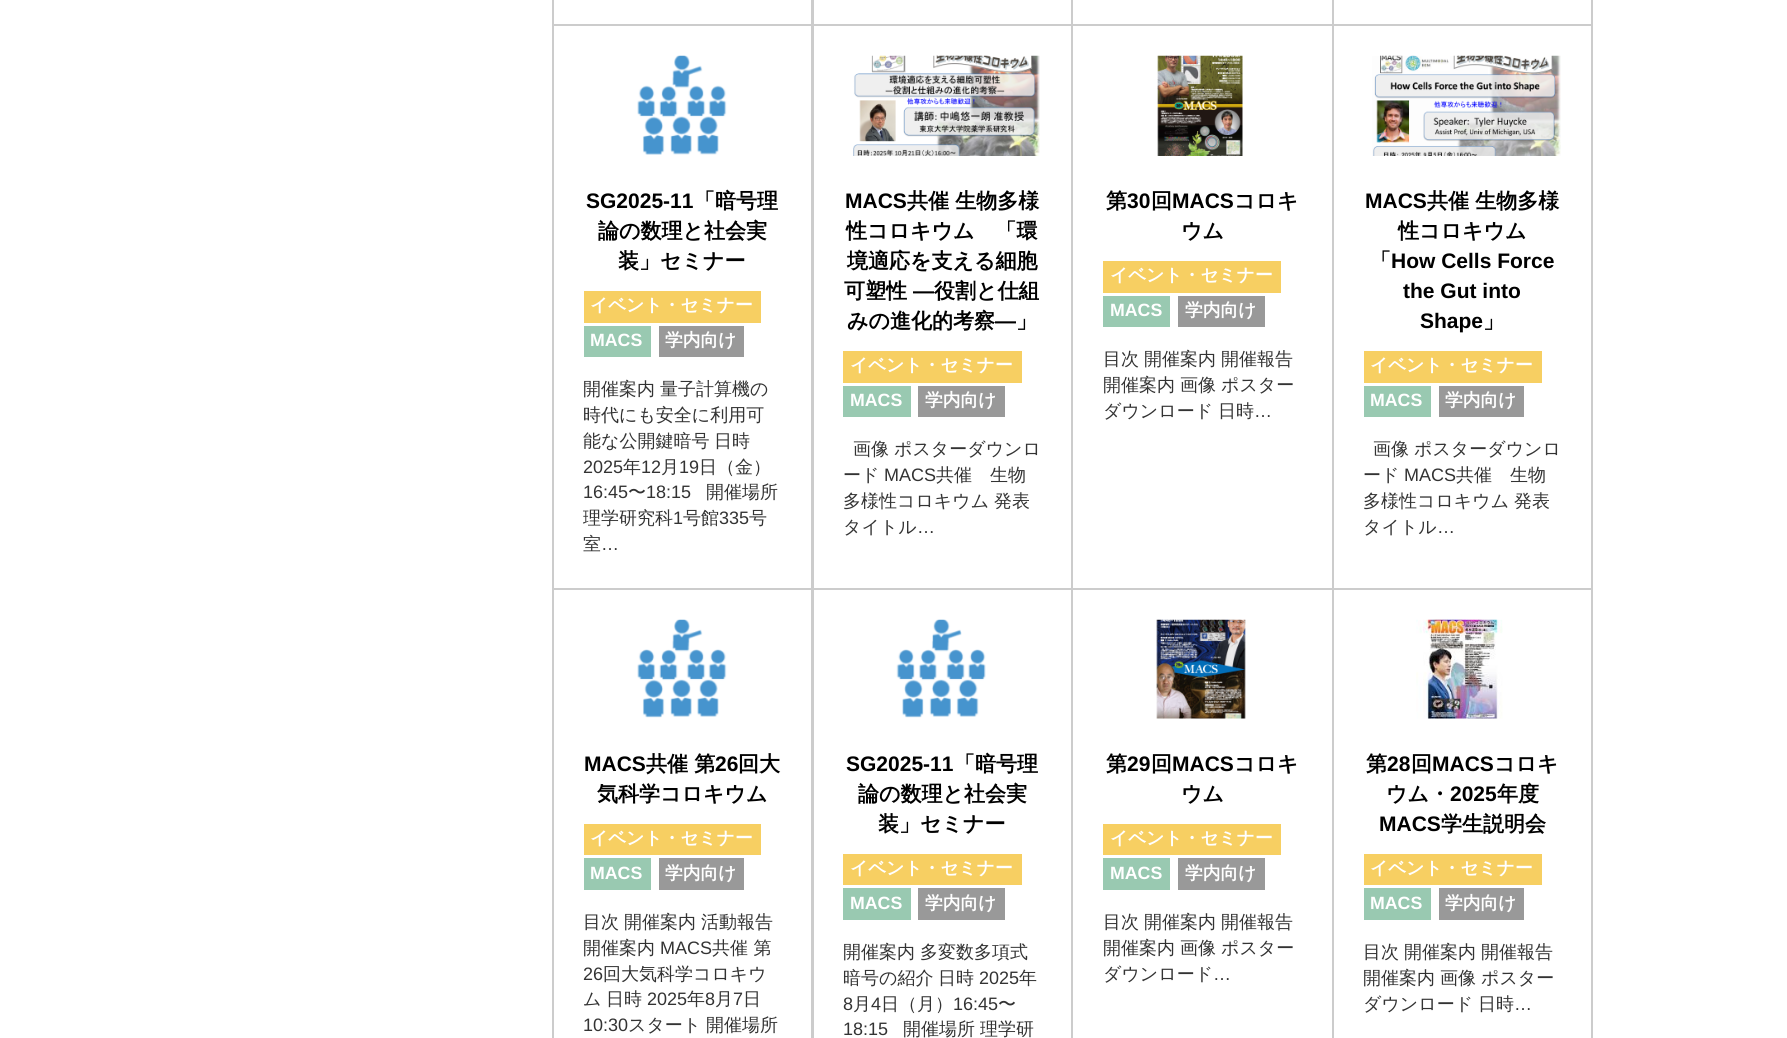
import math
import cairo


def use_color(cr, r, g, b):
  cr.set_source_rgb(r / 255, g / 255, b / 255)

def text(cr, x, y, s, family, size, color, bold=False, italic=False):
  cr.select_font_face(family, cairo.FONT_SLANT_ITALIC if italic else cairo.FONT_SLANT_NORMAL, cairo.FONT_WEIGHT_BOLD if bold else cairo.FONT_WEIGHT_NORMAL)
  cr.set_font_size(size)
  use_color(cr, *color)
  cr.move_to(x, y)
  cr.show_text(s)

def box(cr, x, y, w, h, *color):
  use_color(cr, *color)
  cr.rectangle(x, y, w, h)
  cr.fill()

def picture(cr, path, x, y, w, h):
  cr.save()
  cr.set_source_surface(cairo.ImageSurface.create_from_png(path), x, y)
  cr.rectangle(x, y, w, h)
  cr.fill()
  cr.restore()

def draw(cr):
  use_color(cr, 255, 255, 255)
  cr.paint()
  cr.rectangle(553, -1, 259, 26)
  use_color(cr, 204, 204, 204)
  cr.stroke()
  cr.rectangle(813, -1, 259, 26)
  cr.stroke()
  cr.rectangle(1072, -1, 261, 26)
  cr.stroke()
  cr.rectangle(1333, -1, 259, 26)
  cr.stroke()
  cr.rectangle(553, 25, 259, 564)
  cr.stroke()
  picture(cr, "img_01.png", 637, 55, 90, 100)
  box(cr, 584, 291, 177, 32, 247, 207, 98)
  box(cr, 584, 326, 67, 31, 153, 201, 177)
  box(cr, 659, 326, 85, 31, 153, 153, 153)
  cr.rectangle(813, 25, 259, 564)
  use_color(cr, 204, 204, 204)
  cr.stroke()
  picture(cr, "img_02.png", 853, 55, 187, 101)
  box(cr, 843, 351, 179, 32, 247, 207, 98)
  box(cr, 843, 386, 68, 31, 153, 201, 177)
  box(cr, 918, 386, 87, 31, 153, 153, 153)
  cr.rectangle(1072, 25, 261, 564)
  use_color(cr, 204, 204, 204)
  cr.stroke()
  picture(cr, "img_03.png", 1157, 55, 86, 101)
  box(cr, 1103, 261, 178, 32, 247, 207, 98)
  box(cr, 1103, 296, 67, 31, 153, 201, 177)
  box(cr, 1178, 296, 87, 31, 153, 153, 153)
  cr.rectangle(1333, 25, 259, 564)
  use_color(cr, 204, 204, 204)
  cr.stroke()
  picture(cr, "img_04.png", 1372, 55, 189, 101)
  box(cr, 1364, 351, 178, 32, 247, 207, 98)
  box(cr, 1364, 386, 67, 31, 153, 201, 177)
  box(cr, 1439, 386, 85, 31, 153, 153, 153)
  cr.rectangle(553, 589, 259, 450)
  use_color(cr, 204, 204, 204)
  cr.stroke()
  picture(cr, "img_05.png", 637, 619, 90, 99)
  box(cr, 584, 824, 177, 31, 247, 207, 98)
  box(cr, 584, 858, 67, 32, 153, 201, 177)
  box(cr, 659, 858, 85, 32, 153, 153, 153)
  cr.rectangle(813, 589, 259, 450)
  use_color(cr, 204, 204, 204)
  cr.stroke()
  picture(cr, "img_06.png", 896, 619, 90, 99)
  box(cr, 843, 854, 179, 31, 247, 207, 98)
  box(cr, 843, 888, 68, 32, 153, 201, 177)
  box(cr, 918, 888, 87, 32, 153, 153, 153)
  cr.rectangle(1072, 589, 261, 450)
  use_color(cr, 204, 204, 204)
  cr.stroke()
  picture(cr, "img_07.png", 1156, 619, 90, 100)
  box(cr, 1103, 824, 178, 31, 247, 207, 98)
  box(cr, 1103, 858, 67, 32, 153, 201, 177)
  box(cr, 1178, 858, 87, 32, 153, 153, 153)
  cr.rectangle(1333, 589, 259, 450)
  use_color(cr, 204, 204, 204)
  cr.stroke()
  picture(cr, "img_08.png", 1416, 619, 87, 100)
  box(cr, 1364, 854, 178, 31, 247, 207, 98)
  box(cr, 1364, 888, 67, 32, 153, 201, 177)
  box(cr, 1439, 888, 85, 32, 153, 153, 153)
  text(cr, 586, 208, "SG2025-11", "Liberation Sans", 21, (0, 0, 0), bold=True)
  text(cr, 694, 208, "「暗号理", "WenQuanYi Zen Hei", 21, (0, 0, 0), bold=True)
  text(cr, 598, 238, "論の数理と社会実", "WenQuanYi Zen Hei", 21, (0, 0, 0), bold=True)
  text(cr, 618, 268, "装」セミナー", "WenQuanYi Zen Hei", 21, (0, 0, 0), bold=True)
  text(cr, 590, 311, "イベント・セミナー", "WenQuanYi Zen Hei", 17.75, (255, 255, 255), bold=True)
  text(cr, 590, 346, "MACS", "Liberation Sans", 17.75, (255, 255, 255), bold=True)
  text(cr, 665, 346, "学内向け", "WenQuanYi Zen Hei", 17.75, (255, 255, 255), bold=True)
  text(cr, 583, 395, "開催案内", "WenQuanYi Zen Hei Medium", 18, (51, 51, 51))
  text(cr, 660, 395, "量子計算機の", "WenQuanYi Zen Hei Medium", 18, (51, 51, 51))
  text(cr, 583, 421, "時代にも安全に利用可", "WenQuanYi Zen Hei Medium", 18, (51, 51, 51))
  text(cr, 583, 447, "能な公開鍵暗号", "WenQuanYi Zen Hei Medium", 18, (51, 51, 51))
  text(cr, 714, 447, "日時", "WenQuanYi Zen Hei Medium", 18, (51, 51, 51))
  text(cr, 583, 473, "2025", "Liberation Sans", 18, (51, 51, 51))
  text(cr, 623, 473, "年", "WenQuanYi Zen Hei Medium", 18, (51, 51, 51))
  text(cr, 641, 473, "12", "Liberation Sans", 18, (51, 51, 51))
  text(cr, 661, 473, "月", "WenQuanYi Zen Hei Medium", 18, (51, 51, 51))
  text(cr, 679, 473, "19", "Liberation Sans", 18, (51, 51, 51))
  text(cr, 699, 473, "日（金）", "WenQuanYi Zen Hei Medium", 18, (51, 51, 51))
  text(cr, 583, 498, "16:45", "Liberation Sans", 18, (51, 51, 51))
  text(cr, 628, 498, "〜", "WenQuanYi Zen Hei Medium", 18, (51, 51, 51))
  text(cr, 646, 498, "18:15", "Liberation Sans", 18, (51, 51, 51))
  text(cr, 706, 498, "開催場所", "WenQuanYi Zen Hei Medium", 18, (51, 51, 51))
  text(cr, 583, 524, "理学研究科", "WenQuanYi Zen Hei Medium", 18, (51, 51, 51))
  text(cr, 673, 524, "1", "Liberation Sans", 18, (51, 51, 51))
  text(cr, 683, 524, "号館", "WenQuanYi Zen Hei Medium", 18, (51, 51, 51))
  text(cr, 719, 524, "335", "Liberation Sans", 18, (51, 51, 51))
  text(cr, 749, 524, "号", "WenQuanYi Zen Hei Medium", 18, (51, 51, 51))
  text(cr, 583, 550, "室", "WenQuanYi Zen Hei Medium", 18, (51, 51, 51))
  text(cr, 601, 550, "…", "Liberation Sans", 18, (51, 51, 51))
  text(cr, 845, 208, "MACS", "Liberation Sans", 21, (0, 0, 0), bold=True)
  text(cr, 907, 208, "共催 生物多様", "WenQuanYi Zen Hei", 21, (0, 0, 0), bold=True)
  text(cr, 846, 238, "性コロキウム　「環", "WenQuanYi Zen Hei", 21, (0, 0, 0), bold=True)
  text(cr, 847, 268, "境適応を支える細胞", "WenQuanYi Zen Hei", 21, (0, 0, 0), bold=True)
  text(cr, 844, 298, "可塑性", "WenQuanYi Zen Hei", 21, (0, 0, 0), bold=True)
  text(cr, 913, 298, "―", "Liberation Sans", 21, (0, 0, 0), bold=True)
  text(cr, 934, 298, "役割と仕組", "WenQuanYi Zen Hei", 21, (0, 0, 0), bold=True)
  text(cr, 847, 328, "みの進化的考察", "WenQuanYi Zen Hei", 21, (0, 0, 0), bold=True)
  text(cr, 995, 328, "―", "Liberation Sans", 21, (0, 0, 0), bold=True)
  text(cr, 1016, 328, "」", "WenQuanYi Zen Hei", 21, (0, 0, 0), bold=True)
  text(cr, 850, 371, "イベント・セミナー", "WenQuanYi Zen Hei", 17.75, (255, 255, 255), bold=True)
  text(cr, 850, 406, "MACS", "Liberation Sans", 17.75, (255, 255, 255), bold=True)
  text(cr, 925, 406, "学内向け", "WenQuanYi Zen Hei", 17.75, (255, 255, 255), bold=True)
  text(cr, 853, 455, "画像", "WenQuanYi Zen Hei Medium", 18, (51, 51, 51))
  text(cr, 894, 455, "ポスターダウンロ", "WenQuanYi Zen Hei Medium", 18, (51, 51, 51))
  text(cr, 843, 481, "ード", "WenQuanYi Zen Hei Medium", 18, (51, 51, 51))
  text(cr, 884, 481, "MACS", "Liberation Sans", 18, (51, 51, 51))
  text(cr, 936, 481, "共催　生物", "WenQuanYi Zen Hei Medium", 18, (51, 51, 51))
  text(cr, 843, 507, "多様性コロキウム", "WenQuanYi Zen Hei Medium", 18, (51, 51, 51))
  text(cr, 994, 507, "発表", "WenQuanYi Zen Hei Medium", 18, (51, 51, 51))
  text(cr, 843, 533, "タイトル", "WenQuanYi Zen Hei Medium", 18, (51, 51, 51))
  text(cr, 917, 533, "…", "Liberation Sans", 18, (51, 51, 51))
  text(cr, 1106, 208, "第", "WenQuanYi Zen Hei", 21, (0, 0, 0), bold=True)
  text(cr, 1127, 208, "30", "Liberation Sans", 21, (0, 0, 0), bold=True)
  text(cr, 1151, 208, "回", "WenQuanYi Zen Hei", 21, (0, 0, 0), bold=True)
  text(cr, 1172, 208, "MACS", "Liberation Sans", 21, (0, 0, 0), bold=True)
  text(cr, 1234, 208, "コロキ", "WenQuanYi Zen Hei", 21, (0, 0, 0), bold=True)
  text(cr, 1181, 238, "ウム", "WenQuanYi Zen Hei", 21, (0, 0, 0), bold=True)
  text(cr, 1110, 281, "イベント・セミナー", "WenQuanYi Zen Hei", 17.75, (255, 255, 255), bold=True)
  text(cr, 1110, 316, "MACS", "Liberation Sans", 17.75, (255, 255, 255), bold=True)
  text(cr, 1185, 316, "学内向け", "WenQuanYi Zen Hei", 17.75, (255, 255, 255), bold=True)
  text(cr, 1103, 365, "目次", "WenQuanYi Zen Hei Medium", 18, (51, 51, 51))
  text(cr, 1144, 365, "開催案内", "WenQuanYi Zen Hei Medium", 18, (51, 51, 51))
  text(cr, 1221, 365, "開催報告", "WenQuanYi Zen Hei Medium", 18, (51, 51, 51))
  text(cr, 1103, 391, "開催案内", "WenQuanYi Zen Hei Medium", 18, (51, 51, 51))
  text(cr, 1180, 391, "画像", "WenQuanYi Zen Hei Medium", 18, (51, 51, 51))
  text(cr, 1221, 391, "ポスター", "WenQuanYi Zen Hei Medium", 18, (51, 51, 51))
  text(cr, 1103, 417, "ダウンロード", "WenQuanYi Zen Hei Medium", 18, (51, 51, 51))
  text(cr, 1218, 417, "日時", "WenQuanYi Zen Hei Medium", 18, (51, 51, 51))
  text(cr, 1254, 417, "…", "Liberation Sans", 18, (51, 51, 51))
  text(cr, 1365, 208, "MACS", "Liberation Sans", 21, (0, 0, 0), bold=True)
  text(cr, 1427, 208, "共催 生物多様", "WenQuanYi Zen Hei", 21, (0, 0, 0), bold=True)
  text(cr, 1398, 238, "性コロキウム", "WenQuanYi Zen Hei", 21, (0, 0, 0), bold=True)
  text(cr, 1370, 268, "「", "WenQuanYi Zen Hei", 21, (0, 0, 0), bold=True)
  text(cr, 1391, 268, "How Cells Force", "Liberation Sans", 21, (0, 0, 0), bold=True)
  text(cr, 1403, 298, "the Gut into", "Liberation Sans", 21, (0, 0, 0), bold=True)
  text(cr, 1420, 328, "Shape", "Liberation Sans", 21, (0, 0, 0), bold=True)
  text(cr, 1483, 328, "」", "WenQuanYi Zen Hei", 21, (0, 0, 0), bold=True)
  text(cr, 1370, 371, "イベント・セミナー", "WenQuanYi Zen Hei", 17.75, (255, 255, 255), bold=True)
  text(cr, 1370, 406, "MACS", "Liberation Sans", 17.75, (255, 255, 255), bold=True)
  text(cr, 1445, 406, "学内向け", "WenQuanYi Zen Hei", 17.75, (255, 255, 255), bold=True)
  text(cr, 1373, 455, "画像", "WenQuanYi Zen Hei Medium", 18, (51, 51, 51))
  text(cr, 1414, 455, "ポスターダウンロ", "WenQuanYi Zen Hei Medium", 18, (51, 51, 51))
  text(cr, 1363, 481, "ード", "WenQuanYi Zen Hei Medium", 18, (51, 51, 51))
  text(cr, 1404, 481, "MACS", "Liberation Sans", 18, (51, 51, 51))
  text(cr, 1456, 481, "共催　生物", "WenQuanYi Zen Hei Medium", 18, (51, 51, 51))
  text(cr, 1363, 507, "多様性コロキウム", "WenQuanYi Zen Hei Medium", 18, (51, 51, 51))
  text(cr, 1514, 507, "発表", "WenQuanYi Zen Hei Medium", 18, (51, 51, 51))
  text(cr, 1363, 533, "タイトル", "WenQuanYi Zen Hei Medium", 18, (51, 51, 51))
  text(cr, 1437, 533, "…", "Liberation Sans", 18, (51, 51, 51))
  text(cr, 584, 771, "MACS", "Liberation Sans", 21, (0, 0, 0), bold=True)
  text(cr, 646, 771, "共催 第", "WenQuanYi Zen Hei", 21, (0, 0, 0), bold=True)
  text(cr, 715, 771, "26", "Liberation Sans", 21, (0, 0, 0), bold=True)
  text(cr, 738, 771, "回大", "WenQuanYi Zen Hei", 21, (0, 0, 0), bold=True)
  text(cr, 597, 801, "気科学コロキウム", "WenQuanYi Zen Hei", 21, (0, 0, 0), bold=True)
  text(cr, 590, 844, "イベント・セミナー", "WenQuanYi Zen Hei", 17.75, (255, 255, 255), bold=True)
  text(cr, 590, 879, "MACS", "Liberation Sans", 17.75, (255, 255, 255), bold=True)
  text(cr, 665, 879, "学内向け", "WenQuanYi Zen Hei", 17.75, (255, 255, 255), bold=True)
  text(cr, 583, 928, "目次", "WenQuanYi Zen Hei Medium", 18, (51, 51, 51))
  text(cr, 624, 928, "開催案内", "WenQuanYi Zen Hei Medium", 18, (51, 51, 51))
  text(cr, 701, 928, "活動報告", "WenQuanYi Zen Hei Medium", 18, (51, 51, 51))
  text(cr, 583, 954, "開催案内", "WenQuanYi Zen Hei Medium", 18, (51, 51, 51))
  text(cr, 660, 954, "MACS", "Liberation Sans", 18, (51, 51, 51))
  text(cr, 712, 954, "共催 第", "WenQuanYi Zen Hei Medium", 18, (51, 51, 51))
  text(cr, 583, 980, "26", "Liberation Sans", 18, (51, 51, 51))
  text(cr, 603, 980, "回大気科学コロキウ", "WenQuanYi Zen Hei Medium", 18, (51, 51, 51))
  text(cr, 583, 1005, "ム", "WenQuanYi Zen Hei Medium", 18, (51, 51, 51))
  text(cr, 606, 1005, "日時", "WenQuanYi Zen Hei Medium", 18, (51, 51, 51))
  text(cr, 647, 1005, "2025", "Liberation Sans", 18, (51, 51, 51))
  text(cr, 687, 1005, "年", "WenQuanYi Zen Hei Medium", 18, (51, 51, 51))
  text(cr, 705, 1005, "8", "Liberation Sans", 18, (51, 51, 51))
  text(cr, 715, 1005, "月", "WenQuanYi Zen Hei Medium", 18, (51, 51, 51))
  text(cr, 733, 1005, "7", "Liberation Sans", 18, (51, 51, 51))
  text(cr, 743, 1005, "日", "WenQuanYi Zen Hei Medium", 18, (51, 51, 51))
  text(cr, 583, 1031, "10:30", "Liberation Sans", 18, (51, 51, 51))
  text(cr, 628, 1031, "スタート", "WenQuanYi Zen Hei Medium", 18, (51, 51, 51))
  text(cr, 706, 1031, "開催場所", "WenQuanYi Zen Hei Medium", 18, (51, 51, 51))
  text(cr, 846, 771, "SG2025-11", "Liberation Sans", 21, (0, 0, 0), bold=True)
  text(cr, 954, 771, "「暗号理", "WenQuanYi Zen Hei", 21, (0, 0, 0), bold=True)
  text(cr, 858, 801, "論の数理と社会実", "WenQuanYi Zen Hei", 21, (0, 0, 0), bold=True)
  text(cr, 878, 831, "装」セミナー", "WenQuanYi Zen Hei", 21, (0, 0, 0), bold=True)
  text(cr, 850, 874, "イベント・セミナー", "WenQuanYi Zen Hei", 17.75, (255, 255, 255), bold=True)
  text(cr, 850, 909, "MACS", "Liberation Sans", 17.75, (255, 255, 255), bold=True)
  text(cr, 925, 909, "学内向け", "WenQuanYi Zen Hei", 17.75, (255, 255, 255), bold=True)
  text(cr, 843, 958, "開催案内", "WenQuanYi Zen Hei Medium", 18, (51, 51, 51))
  text(cr, 920, 958, "多変数多項式", "WenQuanYi Zen Hei Medium", 18, (51, 51, 51))
  text(cr, 843, 984, "暗号の紹介", "WenQuanYi Zen Hei Medium", 18, (51, 51, 51))
  text(cr, 938, 984, "日時", "WenQuanYi Zen Hei Medium", 18, (51, 51, 51))
  text(cr, 979, 984, "2025", "Liberation Sans", 18, (51, 51, 51))
  text(cr, 1019, 984, "年", "WenQuanYi Zen Hei Medium", 18, (51, 51, 51))
  text(cr, 843, 1010, "8", "Liberation Sans", 18, (51, 51, 51))
  text(cr, 853, 1010, "月", "WenQuanYi Zen Hei Medium", 18, (51, 51, 51))
  text(cr, 871, 1010, "4", "Liberation Sans", 18, (51, 51, 51))
  text(cr, 881, 1010, "日（月）", "WenQuanYi Zen Hei Medium", 18, (51, 51, 51))
  text(cr, 953, 1010, "16:45", "Liberation Sans", 18, (51, 51, 51))
  text(cr, 998, 1010, "〜", "WenQuanYi Zen Hei Medium", 18, (51, 51, 51))
  text(cr, 843, 1035, "18:15", "Liberation Sans", 18, (51, 51, 51))
  text(cr, 903, 1035, "開催場所", "WenQuanYi Zen Hei Medium", 18, (51, 51, 51))
  text(cr, 980, 1035, "理学研", "WenQuanYi Zen Hei Medium", 18, (51, 51, 51))
  text(cr, 1106, 771, "第", "WenQuanYi Zen Hei", 21, (0, 0, 0), bold=True)
  text(cr, 1127, 771, "29", "Liberation Sans", 21, (0, 0, 0), bold=True)
  text(cr, 1151, 771, "回", "WenQuanYi Zen Hei", 21, (0, 0, 0), bold=True)
  text(cr, 1172, 771, "MACS", "Liberation Sans", 21, (0, 0, 0), bold=True)
  text(cr, 1234, 771, "コロキ", "WenQuanYi Zen Hei", 21, (0, 0, 0), bold=True)
  text(cr, 1181, 801, "ウム", "WenQuanYi Zen Hei", 21, (0, 0, 0), bold=True)
  text(cr, 1110, 844, "イベント・セミナー", "WenQuanYi Zen Hei", 17.75, (255, 255, 255), bold=True)
  text(cr, 1110, 879, "MACS", "Liberation Sans", 17.75, (255, 255, 255), bold=True)
  text(cr, 1185, 879, "学内向け", "WenQuanYi Zen Hei", 17.75, (255, 255, 255), bold=True)
  text(cr, 1103, 928, "目次", "WenQuanYi Zen Hei Medium", 18, (51, 51, 51))
  text(cr, 1144, 928, "開催案内", "WenQuanYi Zen Hei Medium", 18, (51, 51, 51))
  text(cr, 1221, 928, "開催報告", "WenQuanYi Zen Hei Medium", 18, (51, 51, 51))
  text(cr, 1103, 954, "開催案内", "WenQuanYi Zen Hei Medium", 18, (51, 51, 51))
  text(cr, 1180, 954, "画像", "WenQuanYi Zen Hei Medium", 18, (51, 51, 51))
  text(cr, 1221, 954, "ポスター", "WenQuanYi Zen Hei Medium", 18, (51, 51, 51))
  text(cr, 1103, 980, "ダウンロード", "WenQuanYi Zen Hei Medium", 18, (51, 51, 51))
  text(cr, 1213, 980, "…", "Liberation Sans", 18, (51, 51, 51))
  text(cr, 1366, 771, "第", "WenQuanYi Zen Hei", 21, (0, 0, 0), bold=True)
  text(cr, 1387, 771, "28", "Liberation Sans", 21, (0, 0, 0), bold=True)
  text(cr, 1411, 771, "回", "WenQuanYi Zen Hei", 21, (0, 0, 0), bold=True)
  text(cr, 1432, 771, "MACS", "Liberation Sans", 21, (0, 0, 0), bold=True)
  text(cr, 1494, 771, "コロキ", "WenQuanYi Zen Hei", 21, (0, 0, 0), bold=True)
  text(cr, 1386, 801, "ウム・", "WenQuanYi Zen Hei", 21, (0, 0, 0), bold=True)
  text(cr, 1450, 801, "2025", "Liberation Sans", 21, (0, 0, 0), bold=True)
  text(cr, 1497, 801, "年度", "WenQuanYi Zen Hei", 21, (0, 0, 0), bold=True)
  text(cr, 1379, 831, "MACS", "Liberation Sans", 21, (0, 0, 0), bold=True)
  text(cr, 1441, 831, "学生説明会", "WenQuanYi Zen Hei", 21, (0, 0, 0), bold=True)
  text(cr, 1370, 874, "イベント・セミナー", "WenQuanYi Zen Hei", 17.75, (255, 255, 255), bold=True)
  text(cr, 1370, 909, "MACS", "Liberation Sans", 17.75, (255, 255, 255), bold=True)
  text(cr, 1445, 909, "学内向け", "WenQuanYi Zen Hei", 17.75, (255, 255, 255), bold=True)
  text(cr, 1363, 958, "目次", "WenQuanYi Zen Hei Medium", 18, (51, 51, 51))
  text(cr, 1404, 958, "開催案内", "WenQuanYi Zen Hei Medium", 18, (51, 51, 51))
  text(cr, 1481, 958, "開催報告", "WenQuanYi Zen Hei Medium", 18, (51, 51, 51))
  text(cr, 1363, 984, "開催案内", "WenQuanYi Zen Hei Medium", 18, (51, 51, 51))
  text(cr, 1440, 984, "画像", "WenQuanYi Zen Hei Medium", 18, (51, 51, 51))
  text(cr, 1481, 984, "ポスター", "WenQuanYi Zen Hei Medium", 18, (51, 51, 51))
  text(cr, 1363, 1010, "ダウンロード", "WenQuanYi Zen Hei Medium", 18, (51, 51, 51))
  text(cr, 1478, 1010, "日時", "WenQuanYi Zen Hei Medium", 18, (51, 51, 51))
  text(cr, 1514, 1010, "…", "Liberation Sans", 18, (51, 51, 51))


surface = cairo.ImageSurface(cairo.FORMAT_RGB24, 1787, 1038)
cr = cairo.Context(surface)
options = cairo.FontOptions()
options.set_hint_metrics(cairo.HINT_METRICS_OFF)
options.set_hint_style(cairo.HINT_STYLE_NONE)
cr.set_font_options(options)
cr.set_miter_limit(4)
draw(cr)
surface.write_to_png("out.png")
